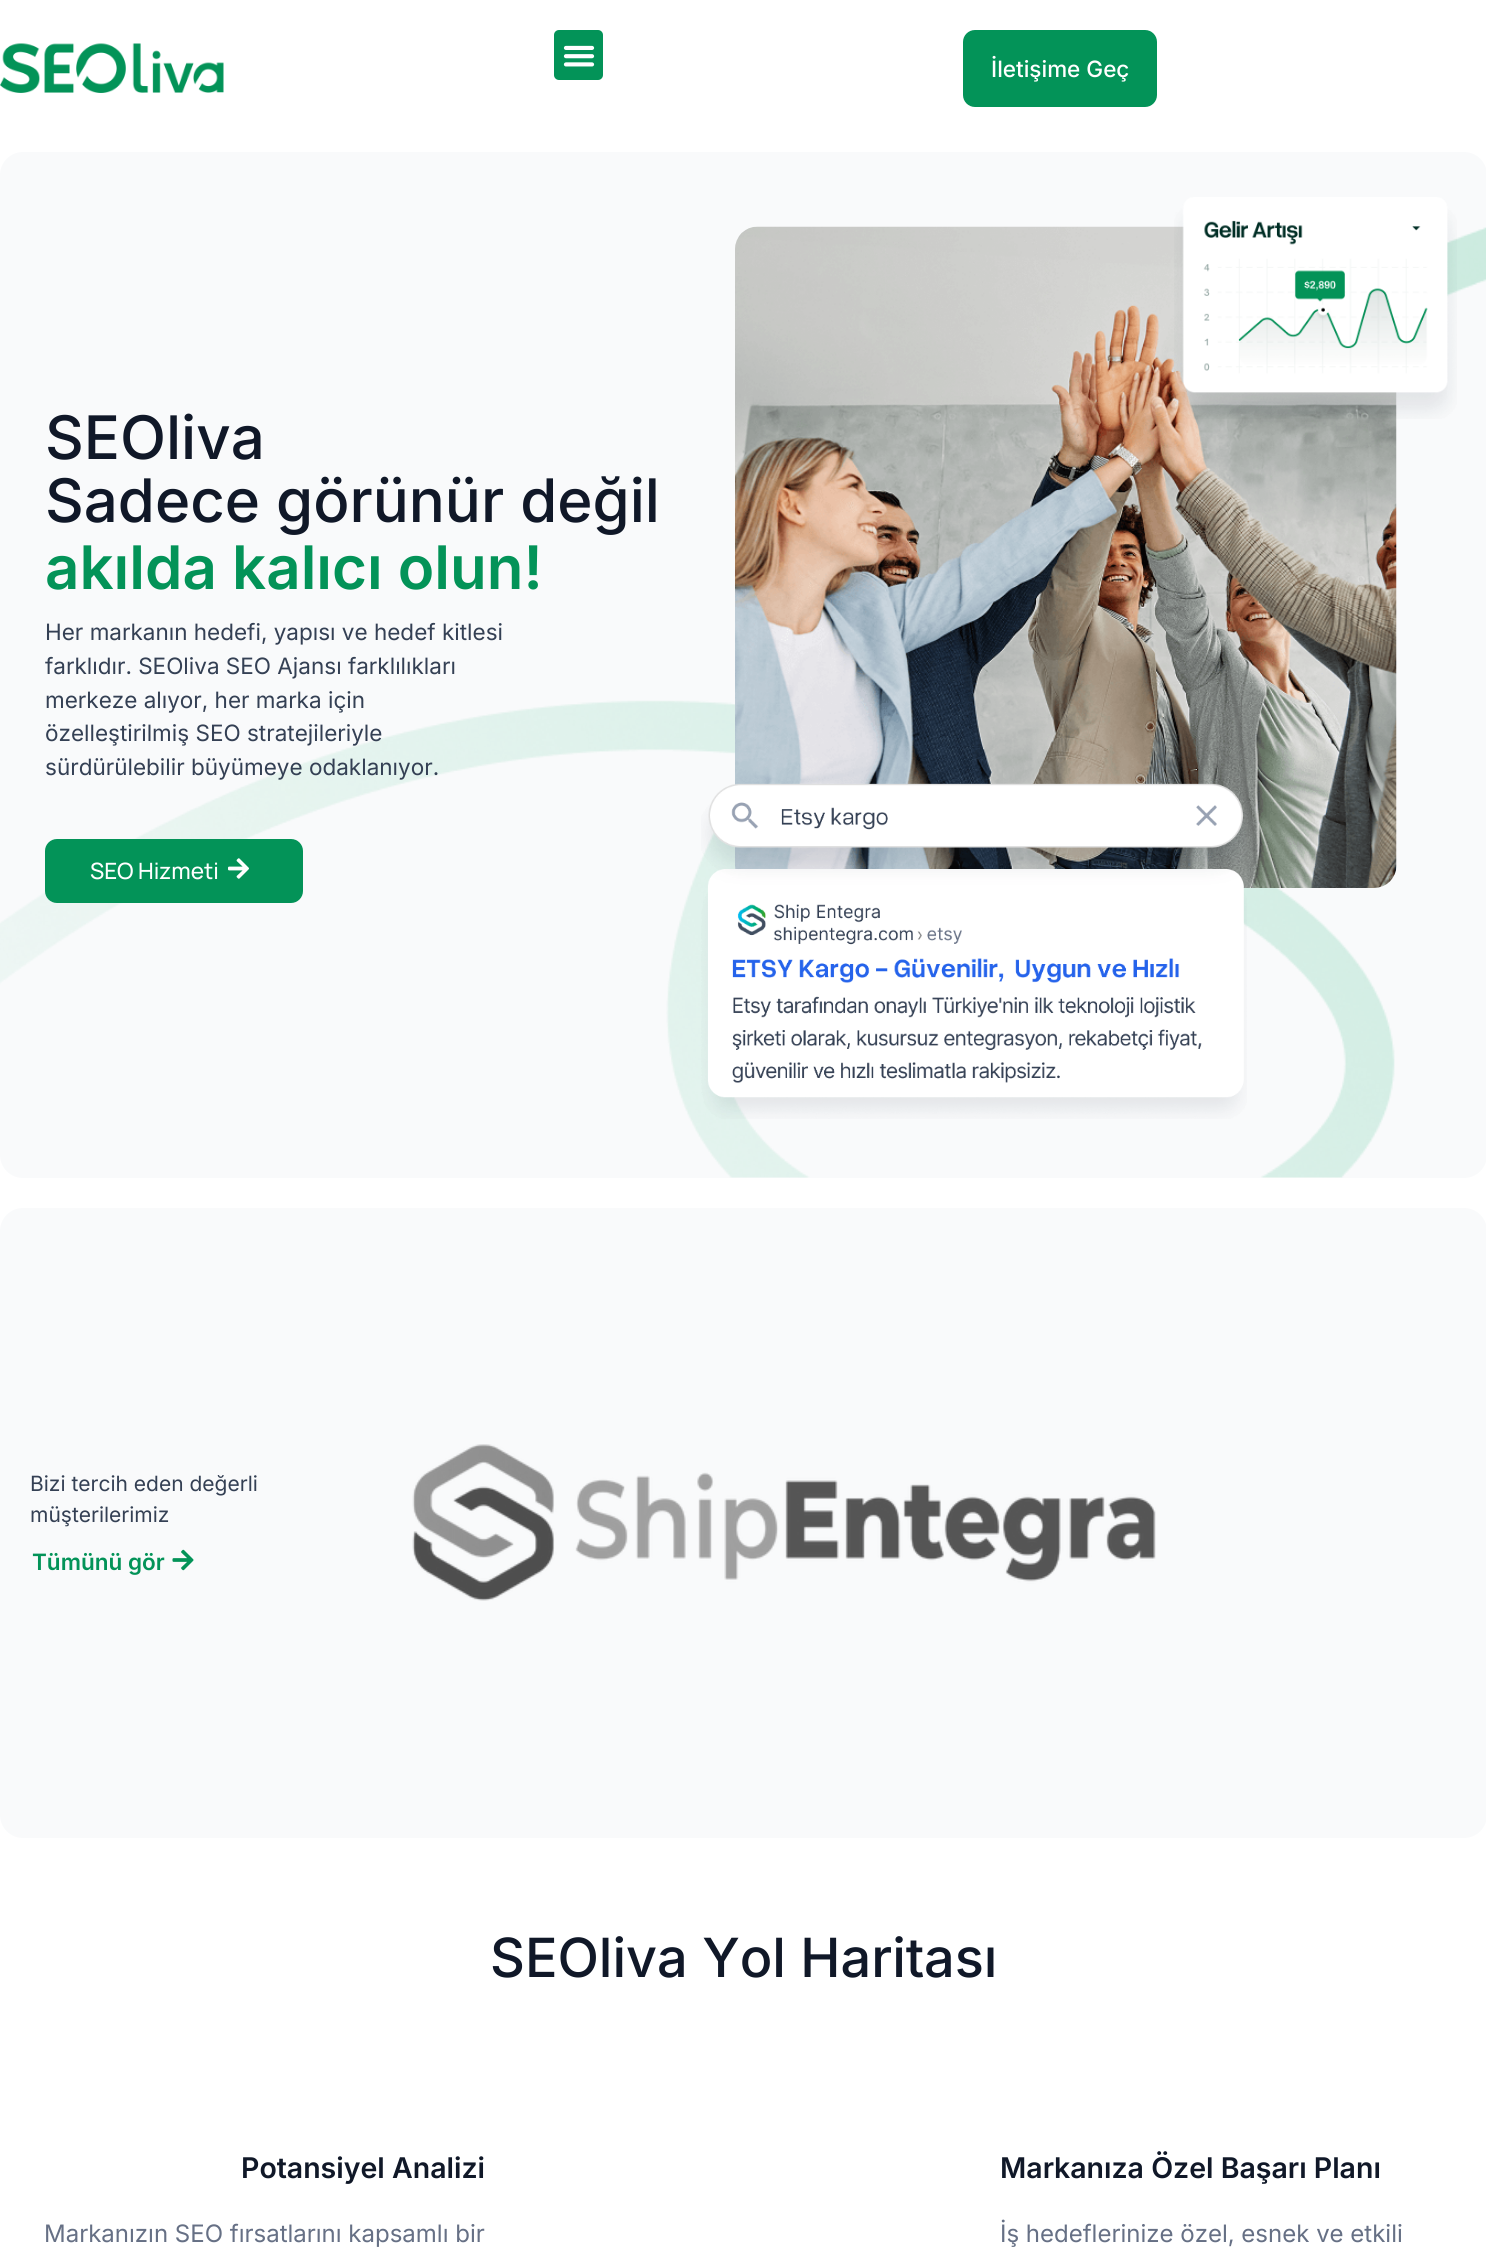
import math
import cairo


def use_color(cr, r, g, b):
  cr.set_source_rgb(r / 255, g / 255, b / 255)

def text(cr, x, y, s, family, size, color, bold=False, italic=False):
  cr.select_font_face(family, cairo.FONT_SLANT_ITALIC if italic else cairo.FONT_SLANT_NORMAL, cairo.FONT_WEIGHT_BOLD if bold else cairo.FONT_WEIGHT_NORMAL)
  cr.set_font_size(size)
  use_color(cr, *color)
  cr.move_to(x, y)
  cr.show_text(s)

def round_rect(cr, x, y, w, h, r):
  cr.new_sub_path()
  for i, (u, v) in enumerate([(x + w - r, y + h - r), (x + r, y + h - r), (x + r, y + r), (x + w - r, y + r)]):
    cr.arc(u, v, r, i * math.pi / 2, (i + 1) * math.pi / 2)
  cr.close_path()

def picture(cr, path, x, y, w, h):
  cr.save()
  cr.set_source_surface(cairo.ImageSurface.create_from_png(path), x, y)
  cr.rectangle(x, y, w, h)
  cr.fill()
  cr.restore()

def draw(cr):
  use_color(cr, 255, 255, 255)
  cr.paint()
  picture(cr, "img_01.png", 0, 43, 224, 50)
  use_color(cr, 3, 147, 88)
  round_rect(cr, 554, 30, 49, 50, 5)
  cr.fill()
  picture(cr, "img_02.png", 563, 45, 32, 22)
  round_rect(cr, 963, 30, 194, 77, 12)
  cr.fill()
  use_color(cr, 249, 250, 251)
  round_rect(cr, 0, 152, 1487, 1026, 23)
  cr.fill()
  picture(cr, "img_03.png", 0, 227, 1486, 951)
  use_color(cr, 3, 147, 88)
  round_rect(cr, 45, 839, 258, 64, 12)
  cr.fill()
  picture(cr, "img_04.png", 228, 858, 21, 21)
  picture(cr, "img_06.png", 735, 226, 662, 662)
  picture(cr, "img_05.png", 1174, 197, 283, 222)
  picture(cr, "img_07.png", 701, 783, 546, 336)
  use_color(cr, 249, 250, 251)
  round_rect(cr, 0, 1208, 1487, 630, 23)
  cr.fill()
  picture(cr, "img_08.png", 172, 1549, 22, 22)
  picture(cr, "img_09.png", 412, 1444, 744, 157)
  text(cr, 991, 77, "İletişime Geç", "Inter Medium", 22.5, (255, 255, 255))
  text(cr, 45, 459, "SEOliva", "Inter Medium", 60, (16, 24, 40))
  text(cr, 45, 522, "Sadece görünür değil", "Inter Medium", 60, (16, 24, 40))
  text(cr, 45, 589, "akılda kalıcı olun!", "Inter SemiBold", 60, (3, 147, 88))
  text(cr, 45, 640, "Her markanın hedefi, yapısı ve hedef kitlesi", "Inter", 22.5, (52, 64, 84))
  text(cr, 45, 674, "farklıdır. SEOliva SEO Ajansı farklılıkları", "Inter", 22.5, (52, 64, 84))
  text(cr, 45, 708, "merkeze alıyor, her marka için", "Inter", 22.5, (52, 64, 84))
  text(cr, 45, 741, "özelleştirilmiş SEO stratejileriyle", "Inter", 22.5, (52, 64, 84))
  text(cr, 45, 775, "sürdürülebilir büyümeye odaklanıyor.", "Inter", 22.5, (52, 64, 84))
  text(cr, 90, 879, "SEO Hizmeti", "Manrope Medium", 22.5, (255, 255, 255))
  text(cr, 30, 1491, "Bizi tercih eden değerli", "Inter", 21, (52, 64, 84))
  text(cr, 30, 1522, "müşterilerimiz", "Inter", 21, (52, 64, 84))
  text(cr, 32, 1570, "Tümünü gör", "Inter SemiBold", 22.5, (3, 147, 88))
  text(cr, 490, 1977, "SEOliva Yol Haritası", "Inter Medium", 54, (16, 24, 40))
  text(cr, 241, 2178, "Potansiyel Analizi", "Inter SemiBold", 28.5, (16, 24, 40))
  text(cr, 44, 2242, "Markanızın SEO fırsatlarını kapsamlı bir", "Inter", 24, (102, 112, 133))
  text(cr, 1000, 2178, "Markanıza Özel Başarı Planı", "Inter SemiBold", 28.5, (16, 24, 40))
  text(cr, 1000, 2242, "İş hedeflerinize özel, esnek ve etkili", "Inter", 24, (102, 112, 133))


surface = cairo.ImageSurface(cairo.FORMAT_RGB24, 1486, 2255)
cr = cairo.Context(surface)
options = cairo.FontOptions()
options.set_hint_metrics(cairo.HINT_METRICS_OFF)
options.set_hint_style(cairo.HINT_STYLE_NONE)
cr.set_font_options(options)
cr.set_miter_limit(4)
draw(cr)
surface.write_to_png("out.png")
